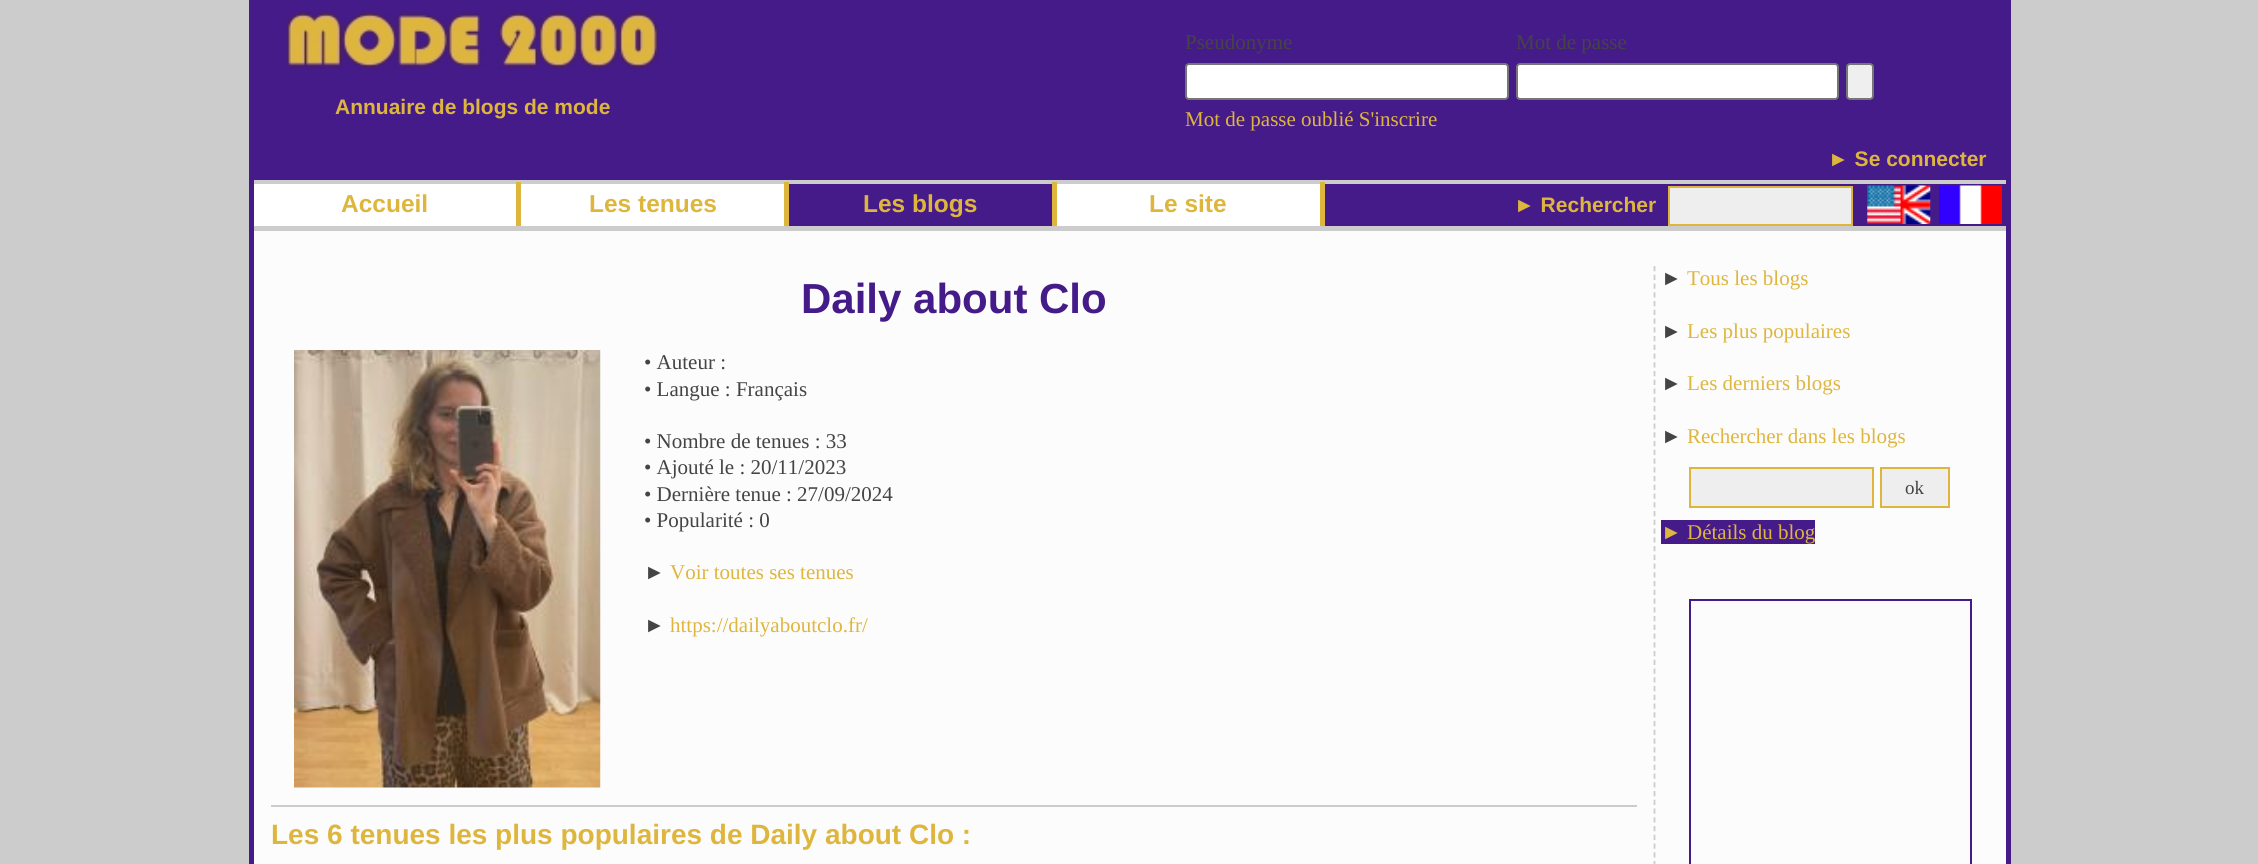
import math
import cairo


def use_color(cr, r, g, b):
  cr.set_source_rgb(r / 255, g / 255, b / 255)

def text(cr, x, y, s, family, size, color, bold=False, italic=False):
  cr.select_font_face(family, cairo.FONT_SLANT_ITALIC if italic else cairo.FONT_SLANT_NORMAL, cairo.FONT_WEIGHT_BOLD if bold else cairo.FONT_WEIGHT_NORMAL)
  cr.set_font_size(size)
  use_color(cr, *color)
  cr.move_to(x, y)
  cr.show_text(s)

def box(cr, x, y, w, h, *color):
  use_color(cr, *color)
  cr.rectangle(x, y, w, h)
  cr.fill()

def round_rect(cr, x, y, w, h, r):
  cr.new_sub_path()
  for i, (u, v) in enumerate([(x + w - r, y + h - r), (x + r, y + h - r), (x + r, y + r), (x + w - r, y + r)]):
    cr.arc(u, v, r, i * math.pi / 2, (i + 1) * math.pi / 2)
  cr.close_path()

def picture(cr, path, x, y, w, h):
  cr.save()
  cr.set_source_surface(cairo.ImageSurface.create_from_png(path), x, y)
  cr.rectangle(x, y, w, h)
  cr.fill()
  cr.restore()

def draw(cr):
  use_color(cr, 204, 204, 204)
  cr.paint()
  box(cr, 254, 231, 1752, 633, 252, 252, 252)
  box(cr, 249, 0, 5, 864, 69, 27, 137)
  box(cr, 254, 0, 1752, 180, 69, 27, 137)
  picture(cr, "img_01.png", 286, 12, 373, 57)
  use_color(cr, 255, 255, 255)
  round_rect(cr, 1186, 64, 322, 35, 3)
  cr.fill_preserve()
  use_color(cr, 118, 118, 118)
  cr.stroke()
  use_color(cr, 255, 255, 255)
  round_rect(cr, 1517, 64, 321, 35, 3)
  cr.fill_preserve()
  use_color(cr, 118, 118, 118)
  cr.stroke()
  use_color(cr, 239, 239, 239)
  round_rect(cr, 1847, 64, 26, 35, 3)
  cr.fill_preserve()
  use_color(cr, 118, 118, 118)
  cr.stroke()
  box(cr, 2006, 0, 5, 864, 69, 27, 137)
  box(cr, 789, 184, 1217, 42, 69, 27, 137)
  box(cr, 254, 184, 262, 42, 255, 255, 255)
  box(cr, 516, 182, 5, 47, 222, 182, 61)
  box(cr, 521, 184, 263, 42, 255, 255, 255)
  box(cr, 784, 182, 5, 47, 222, 182, 61)
  box(cr, 1052, 182, 5, 47, 222, 182, 61)
  box(cr, 1057, 184, 263, 42, 255, 255, 255)
  box(cr, 1320, 182, 5, 47, 222, 182, 61)
  use_color(cr, 238, 238, 238)
  cr.rectangle(1669, 187, 183, 38)
  cr.fill_preserve()
  use_color(cr, 222, 182, 61)
  cr.stroke()
  picture(cr, "img_02.png", 1867, 185, 64, 39)
  picture(cr, "img_03.png", 1939, 185, 63, 39)
  box(cr, 516, 226, 809, 3, 204, 204, 204)
  picture(cr, "img_04.png", 294, 350, 307, 438)
  box(cr, 271, 805, 1366, 2, 204, 204, 204)
  cr.new_path()
  cr.move_to(1654.5, 266)
  cr.line_to(1654.5, 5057.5)
  cr.set_line_width(1.8)
  cr.set_dash([5.25, 3.5])
  cr.stroke()
  use_color(cr, 238, 238, 238)
  cr.rectangle(1690, 468, 183, 39)
  cr.fill_preserve()
  use_color(cr, 222, 182, 61)
  cr.set_line_width(2)
  cr.set_dash([])
  cr.stroke()
  use_color(cr, 238, 238, 238)
  cr.rectangle(1881, 468, 68, 39)
  cr.fill_preserve()
  use_color(cr, 222, 182, 61)
  cr.stroke()
  box(cr, 1661, 520, 154, 24, 69, 27, 137)
  cr.rectangle(1690, 600, 281, 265)
  cr.stroke()
  text(cr, 335, 114, "Annuaire de blogs de mode", "Liberation Sans", 21, (222, 182, 61), bold=True)
  text(cr, 1185, 49, "Pseudonyme", "Liberation Serif", 21, (68, 68, 68))
  text(cr, 1516, 49, "Mot de passe", "Liberation Serif", 21, (68, 68, 68))
  text(cr, 1185, 126, "Mot de passe oublié S'inscrire", "Liberation Serif", 21, (222, 182, 61))
  text(cr, 1828, 166, "► Se connecter", "Liberation Sans", 21, (222, 182, 61), bold=True)
  text(cr, 341, 212, "Accueil", "Liberation Sans", 24.5, (222, 182, 61), bold=True)
  text(cr, 589, 212, "Les tenues", "Liberation Sans", 24.5, (222, 182, 61), bold=True)
  text(cr, 863, 212, "Les blogs", "Liberation Sans", 24.5, (222, 182, 61), bold=True)
  text(cr, 1149, 212, "Le site", "Liberation Sans", 24.5, (222, 182, 61), bold=True)
  text(cr, 1514, 212, "► Rechercher", "Liberation Sans", 21, (222, 182, 61), bold=True)
  text(cr, 801, 313, "Daily about Clo", "Liberation Sans", 42, (69, 27, 137), bold=True)
  text(cr, 644, 369, "• Auteur :", "Liberation Serif", 21, (68, 68, 68))
  text(cr, 644, 396, "• Langue : Français", "Liberation Serif", 21, (68, 68, 68))
  text(cr, 644, 448, "• Nombre de tenues : 33", "Liberation Serif", 21, (68, 68, 68))
  text(cr, 644, 474, "• Ajouté le : 20/11/2023", "Liberation Serif", 21, (68, 68, 68))
  text(cr, 644, 501, "• Dernière tenue : 27/09/2024", "Liberation Serif", 21, (68, 68, 68))
  text(cr, 644, 527, "• Popularité : 0", "Liberation Serif", 21, (68, 68, 68))
  text(cr, 644, 579, "►", "Liberation Serif", 21, (68, 68, 68))
  text(cr, 670, 579, "Voir toutes ses tenues", "Liberation Serif", 21, (222, 182, 61))
  text(cr, 644, 632, "►", "Liberation Serif", 21, (68, 68, 68))
  text(cr, 670, 632, "https://dailyaboutclo.fr/", "Liberation Serif", 21, (222, 182, 61))
  text(cr, 271, 844, "Les 6 tenues les plus populaires de Daily about Clo :", "Liberation Sans", 28, (222, 182, 61), bold=True)
  text(cr, 1661, 285, "►", "Liberation Serif", 21, (68, 68, 68))
  text(cr, 1687, 285, "Tous les blogs", "Liberation Serif", 21, (222, 182, 61))
  text(cr, 1661, 338, "►", "Liberation Serif", 21, (68, 68, 68))
  text(cr, 1687, 338, "Les plus populaires", "Liberation Serif", 21, (222, 182, 61))
  text(cr, 1661, 390, "►", "Liberation Serif", 21, (68, 68, 68))
  text(cr, 1687, 390, "Les derniers blogs", "Liberation Serif", 21, (222, 182, 61))
  text(cr, 1661, 443, "►", "Liberation Serif", 21, (68, 68, 68))
  text(cr, 1687, 443, "Rechercher dans les blogs", "Liberation Serif", 21, (222, 182, 61))
  text(cr, 1905, 494, "ok", "Liberation Serif", 19, (68, 68, 68))
  text(cr, 1661, 539, "► Détails du blog", "Liberation Serif", 21, (222, 182, 61))


surface = cairo.ImageSurface(cairo.FORMAT_RGB24, 2258, 864)
cr = cairo.Context(surface)
options = cairo.FontOptions()
options.set_hint_metrics(cairo.HINT_METRICS_OFF)
options.set_hint_style(cairo.HINT_STYLE_NONE)
cr.set_font_options(options)
cr.set_miter_limit(4)
draw(cr)
surface.write_to_png("out.png")
